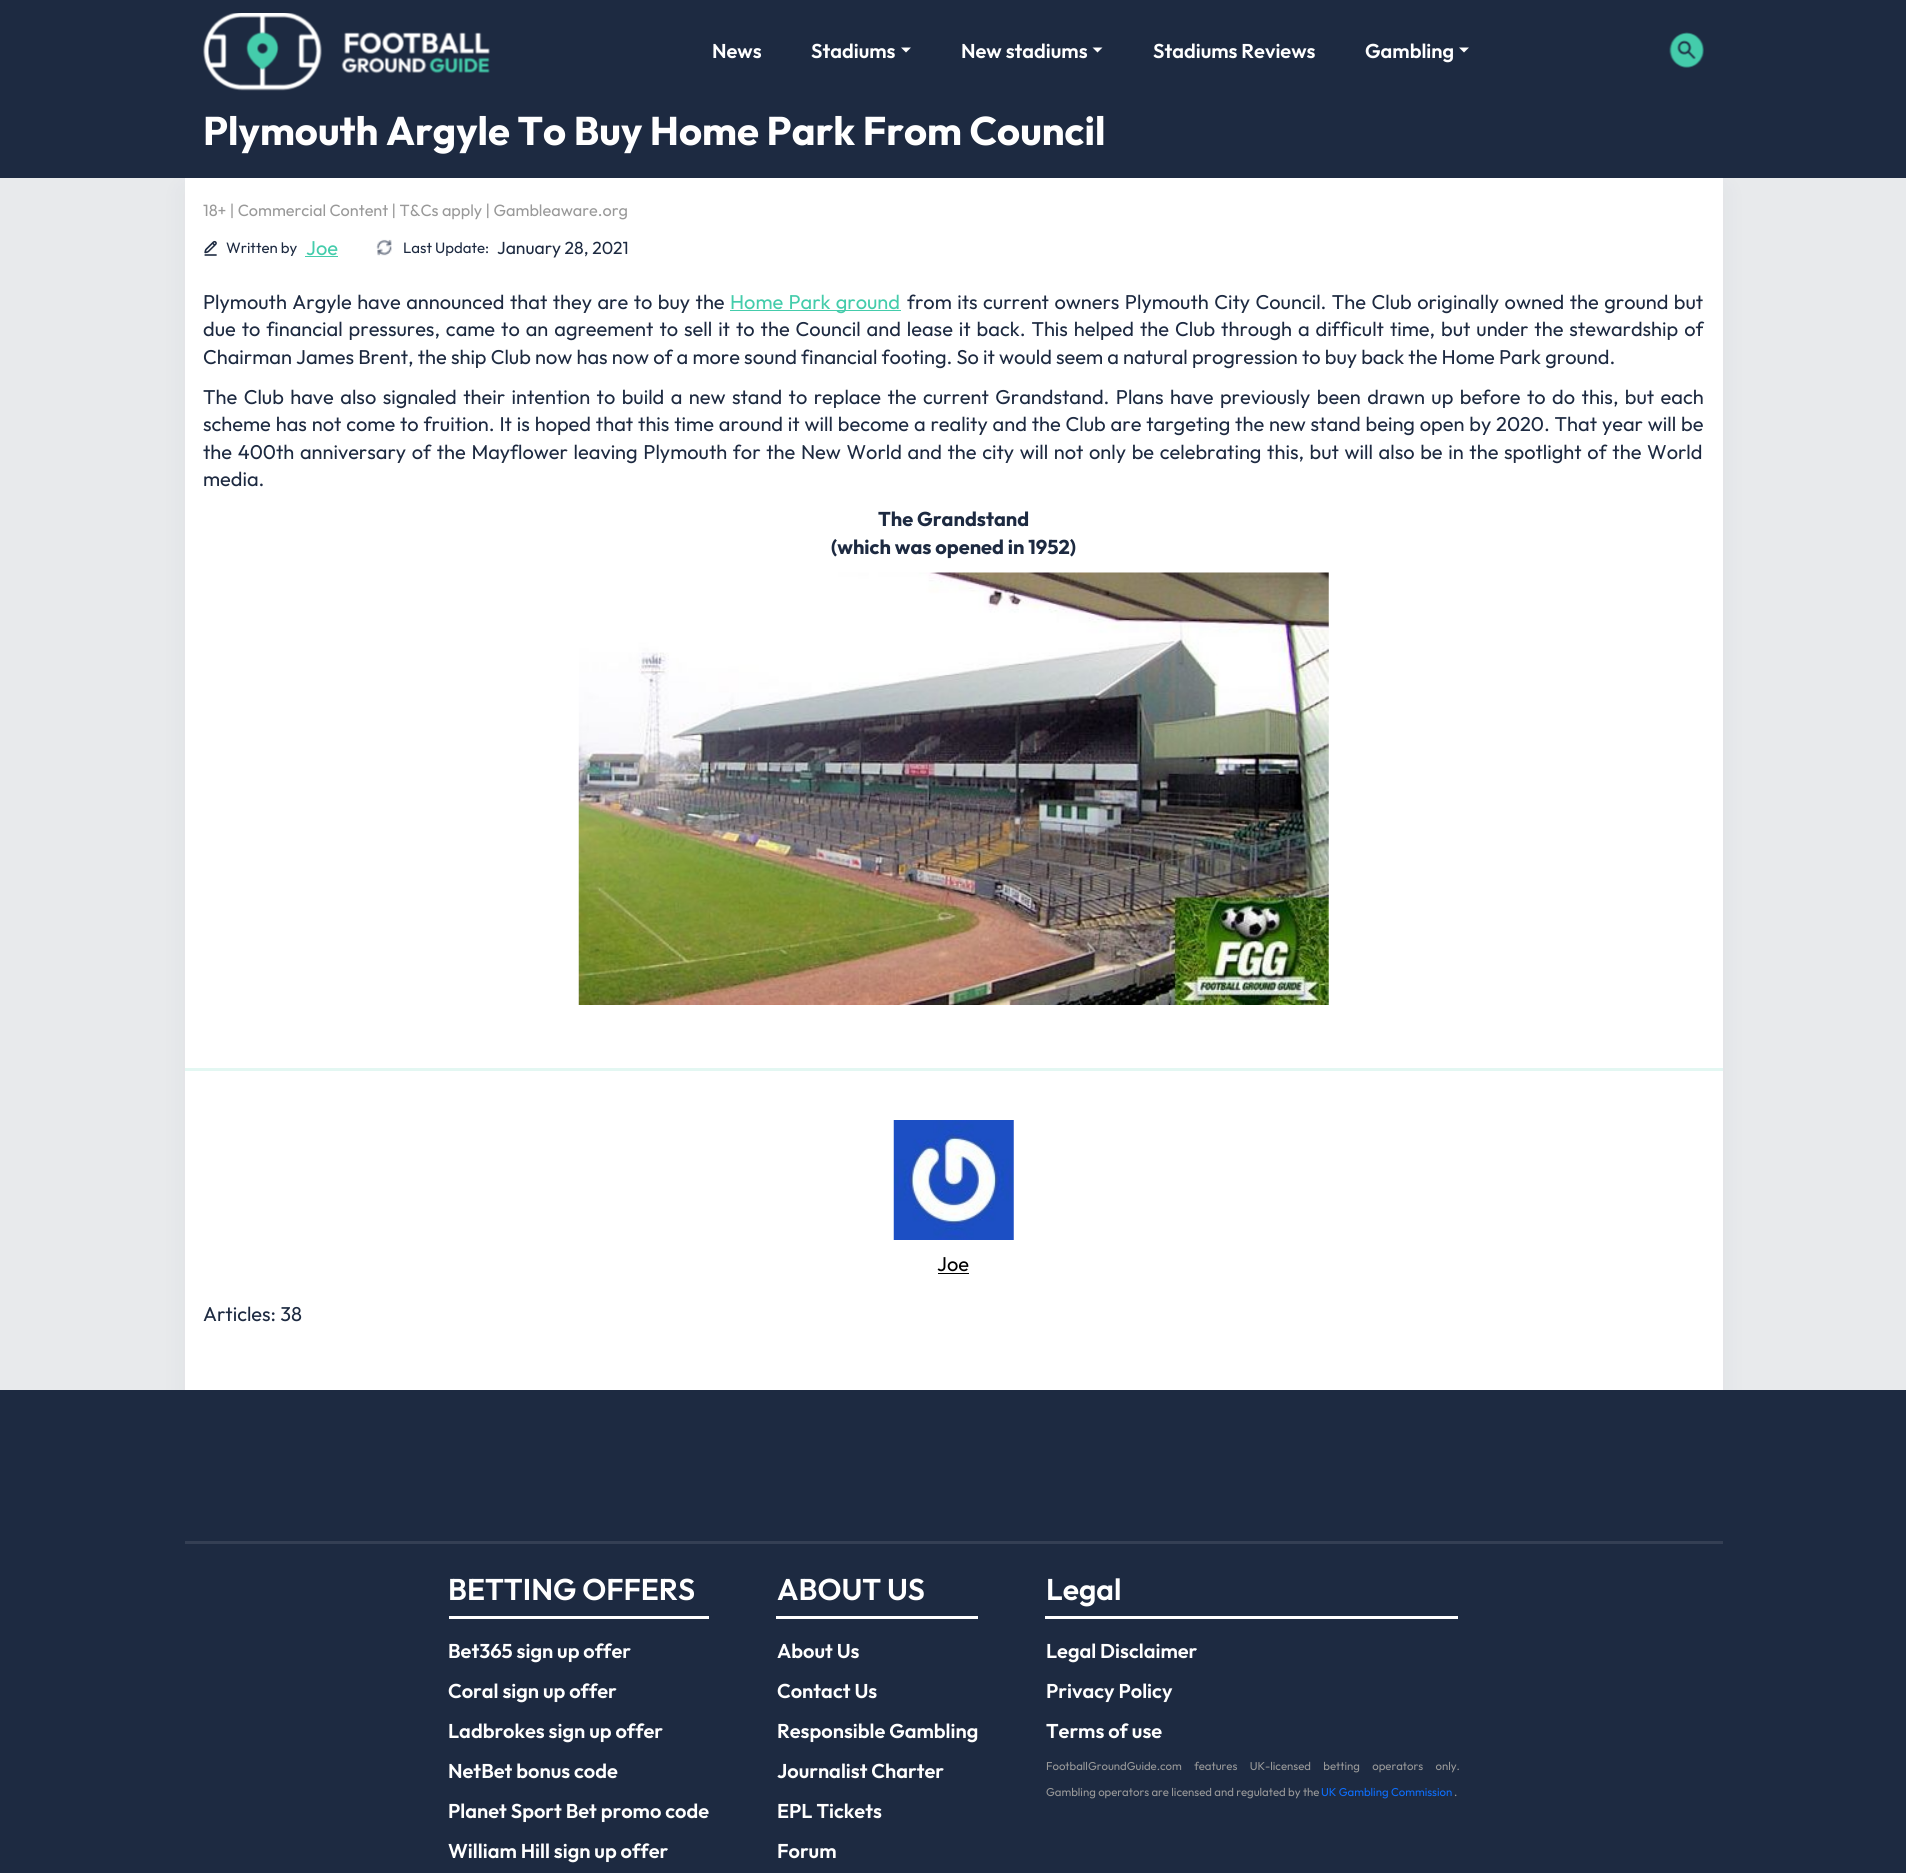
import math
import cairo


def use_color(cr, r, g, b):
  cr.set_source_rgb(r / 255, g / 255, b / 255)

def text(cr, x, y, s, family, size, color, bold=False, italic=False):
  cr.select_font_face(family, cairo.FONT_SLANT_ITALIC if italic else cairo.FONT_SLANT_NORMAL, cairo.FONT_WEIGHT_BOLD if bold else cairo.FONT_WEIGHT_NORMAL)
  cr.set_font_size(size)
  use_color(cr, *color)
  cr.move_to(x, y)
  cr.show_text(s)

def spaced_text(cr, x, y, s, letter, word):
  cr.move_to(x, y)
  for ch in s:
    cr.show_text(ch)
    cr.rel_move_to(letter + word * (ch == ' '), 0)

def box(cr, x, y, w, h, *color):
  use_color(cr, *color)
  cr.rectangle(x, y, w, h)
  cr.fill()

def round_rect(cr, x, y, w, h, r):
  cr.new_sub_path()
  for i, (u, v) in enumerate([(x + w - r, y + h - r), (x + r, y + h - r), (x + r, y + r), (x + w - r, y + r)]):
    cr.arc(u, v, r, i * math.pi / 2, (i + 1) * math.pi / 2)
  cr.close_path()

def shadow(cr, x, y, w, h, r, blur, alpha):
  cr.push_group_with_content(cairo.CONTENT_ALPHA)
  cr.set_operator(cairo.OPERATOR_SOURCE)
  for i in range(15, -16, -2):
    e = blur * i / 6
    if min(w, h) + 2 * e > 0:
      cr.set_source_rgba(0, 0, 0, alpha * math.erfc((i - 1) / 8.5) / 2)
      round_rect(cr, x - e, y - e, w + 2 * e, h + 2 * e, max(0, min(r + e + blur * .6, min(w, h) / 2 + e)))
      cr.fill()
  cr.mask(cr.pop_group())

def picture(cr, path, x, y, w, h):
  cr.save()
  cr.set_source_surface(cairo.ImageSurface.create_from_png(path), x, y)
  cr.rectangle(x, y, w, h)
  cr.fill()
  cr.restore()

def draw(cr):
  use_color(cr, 29, 42, 65)
  cr.paint()
  picture(cr, "img_01.png", 203, 13, 287, 78)
  use_color(cr, 255, 255, 255)
  cr.new_path()
  cr.move_to(901, 47.5)
  cr.line_to(911, 47.5)
  cr.line_to(906, 52.5)
  cr.close_path()
  cr.fill()
  cr.new_path()
  cr.move_to(1092.5, 47.5)
  cr.line_to(1102.5, 47.5)
  cr.line_to(1097.5, 52.5)
  cr.close_path()
  cr.fill()
  cr.new_path()
  cr.move_to(1459, 47.5)
  cr.line_to(1469, 47.5)
  cr.line_to(1464, 52.5)
  cr.close_path()
  cr.fill()
  picture(cr, "img_02.png", 1669, 32, 35, 36)
  box(cr, 0, 178, 1906, 1212, 232, 234, 236)
  use_color(cr, 29, 42, 65)
  shadow(cr, 185, 190, 1538, 1213, 0, 12.5, 0.05)
  box(cr, 185, 178, 1538, 1212, 255, 255, 255)
  picture(cr, "img_03.png", 204, 240, 13, 16)
  box(cr, 305, 256, 33, 1, 68, 204, 171)
  picture(cr, "img_04.png", 376, 239, 16, 17)
  box(cr, 730, 310, 171, 1, 68, 204, 171)
  picture(cr, "img_05.png", 578, 572, 751, 433)
  box(cr, 185, 1068, 1538, 3, 227, 247, 242)
  picture(cr, "img_06.png", 893, 1120, 121, 120)
  box(cr, 938, 1273, 31, 1, 0, 0, 0)
  box(cr, 185, 1541, 1538, 3, 52, 63, 84)
  box(cr, 449, 1616, 260, 3, 255, 255, 255)
  box(cr, 776, 1616, 202, 3, 255, 255, 255)
  box(cr, 1045, 1616, 413, 3, 255, 255, 255)
  text(cr, 712, 58, "News", "Outfit SemiBold", 20, (255, 255, 255))
  text(cr, 811, 58, "Stadiums", "Outfit SemiBold", 20, (255, 255, 255))
  text(cr, 961, 58, "New stadiums", "Outfit SemiBold", 20, (255, 255, 255))
  text(cr, 1153, 58, "Stadiums Reviews", "Outfit SemiBold", 20, (255, 255, 255))
  text(cr, 1365, 58, "Gambling", "Outfit SemiBold", 20, (255, 255, 255))
  text(cr, 203, 145, "Plymouth Argyle To Buy Home Park From Council", "Outfit", 40, (255, 255, 255), bold=True)
  text(cr, 203, 216, "18+ | Commercial Content | T&Cs apply | Gambleaware.org", "Outfit", 16.25, (153, 153, 153))
  text(cr, 226, 253, "Written by", "Outfit", 15, (29, 42, 65))
  text(cr, 306, 255, "Joe", "Outfit", 20, (68, 204, 171))
  text(cr, 403, 253, "Last Update:", "Outfit", 15, (29, 42, 65))
  text(cr, 497, 254, "January 28, 2021", "Outfit", 17.5, (29, 42, 65))
  cr.set_font_size(20)
  spaced_text(cr, 203, 309, "Plymouth Argyle have announced that they are to buy the", 0, 1.3)
  use_color(cr, 68, 204, 171)
  spaced_text(cr, 730, 309, "Home Park ground", 0, 1)
  use_color(cr, 29, 42, 65)
  spaced_text(cr, 907, 309, "from its current owners Plymouth City Council. The Club originally owned the ground but", 0, 1.3)
  spaced_text(cr, 203, 336, "due to financial pressures, came to an agreement to sell it to the Council and lease it back. This helped the Club through a difficult time, but under the stewardship of", 0, 1.8)
  text(cr, 203, 364, "Chairman James Brent, the ship Club now has now of a more sound financial footing. So it would seem a natural progression to buy back the Home Park ground.", "Outfit", 20, (29, 42, 65))
  spaced_text(cr, 203, 404, "The Club have also signaled their intention to build a new stand to replace the current Grandstand. Plans have previously been drawn up before to do this, but each", 0, 2.3)
  spaced_text(cr, 203, 431, "scheme has not come to fruition. It is hoped that this time around it will become a reality and the Club are targeting the new stand being open by 2020. That year will be", 0, 0.7)
  spaced_text(cr, 203, 459, "the 400th anniversary of the Mayflower leaving Plymouth for the New World and the city will not only be celebrating this, but will also be in the spotlight of the World", 0, 1.5)
  text(cr, 203, 486, "media.", "Outfit", 20, (29, 42, 65))
  text(cr, 878, 526, "The Grandstand", "Outfit", 20, (29, 42, 65), bold=True)
  text(cr, 831, 554, "(which was opened in 1952)", "Outfit", 20, (29, 42, 65), bold=True)
  text(cr, 937, 1271, "Joe", "Outfit", 20, (0, 0, 0))
  text(cr, 203, 1321, "Articles: 38", "Outfit", 20, (29, 42, 65))
  text(cr, 448, 1600, "BETTING OFFERS", "Outfit SemiBold", 30, (255, 255, 255))
  text(cr, 448, 1658, "Bet365 sign up offer", "Outfit SemiBold", 20, (255, 255, 255))
  text(cr, 448, 1698, "Coral sign up offer", "Outfit SemiBold", 20, (255, 255, 255))
  text(cr, 448, 1738, "Ladbrokes sign up offer", "Outfit SemiBold", 20, (255, 255, 255))
  text(cr, 448, 1778, "NetBet bonus code", "Outfit SemiBold", 20, (255, 255, 255))
  text(cr, 448, 1818, "Planet Sport Bet promo code", "Outfit SemiBold", 20, (255, 255, 255))
  text(cr, 448, 1858, "William Hill sign up offer", "Outfit SemiBold", 20, (255, 255, 255))
  text(cr, 777, 1600, "ABOUT US", "Outfit SemiBold", 30, (255, 255, 255))
  text(cr, 777, 1658, "About Us", "Outfit SemiBold", 20, (255, 255, 255))
  text(cr, 777, 1698, "Contact Us", "Outfit SemiBold", 20, (255, 255, 255))
  text(cr, 777, 1738, "Responsible Gambling", "Outfit SemiBold", 20, (255, 255, 255))
  text(cr, 777, 1778, "Journalist Charter", "Outfit SemiBold", 20, (255, 255, 255))
  text(cr, 777, 1818, "EPL Tickets", "Outfit SemiBold", 20, (255, 255, 255))
  text(cr, 777, 1858, "Forum", "Outfit SemiBold", 20, (255, 255, 255))
  text(cr, 1046, 1600, "Legal", "Outfit SemiBold", 30, (255, 255, 255))
  text(cr, 1046, 1658, "Legal Disclaimer", "Outfit SemiBold", 20, (255, 255, 255))
  text(cr, 1046, 1698, "Privacy Policy", "Outfit SemiBold", 20, (255, 255, 255))
  text(cr, 1046, 1738, "Terms of use", "Outfit SemiBold", 20, (255, 255, 255))
  cr.select_font_face("Outfit")
  cr.set_font_size(11.4)
  use_color(cr, 153, 153, 153)
  spaced_text(cr, 1046, 1770, "FootballGroundGuide.com features UK-licensed betting operators only.", 0, 10)
  text(cr, 1046, 1796, "Gambling operators are licensed and regulated by the", "Outfit", 11.4, (153, 153, 153))
  text(cr, 1321, 1796, "UK Gambling Commission", "Outfit", 11.4, (13, 110, 253))
  text(cr, 1454, 1796, ".", "Outfit", 11.4, (153, 153, 153))


surface = cairo.ImageSurface(cairo.FORMAT_RGB24, 1906, 1873)
cr = cairo.Context(surface)
options = cairo.FontOptions()
options.set_hint_metrics(cairo.HINT_METRICS_OFF)
options.set_hint_style(cairo.HINT_STYLE_NONE)
cr.set_font_options(options)
cr.set_miter_limit(4)
draw(cr)
surface.write_to_png("out.png")
